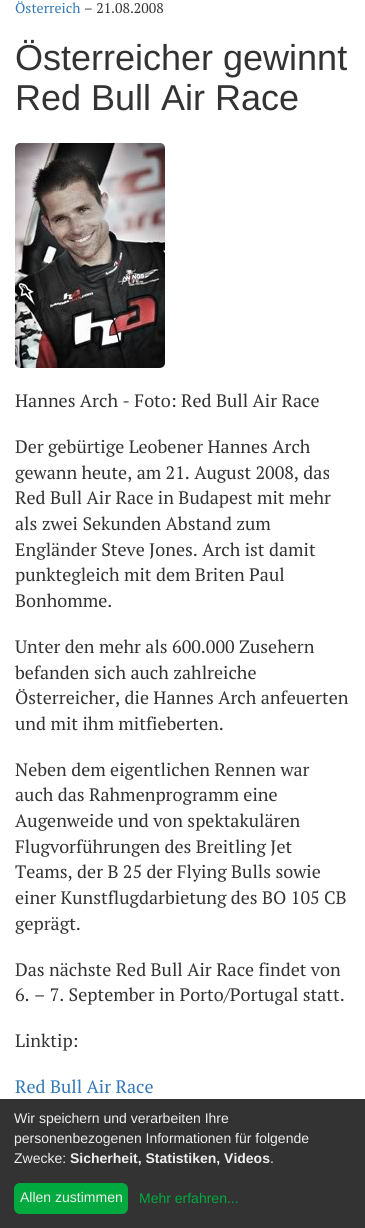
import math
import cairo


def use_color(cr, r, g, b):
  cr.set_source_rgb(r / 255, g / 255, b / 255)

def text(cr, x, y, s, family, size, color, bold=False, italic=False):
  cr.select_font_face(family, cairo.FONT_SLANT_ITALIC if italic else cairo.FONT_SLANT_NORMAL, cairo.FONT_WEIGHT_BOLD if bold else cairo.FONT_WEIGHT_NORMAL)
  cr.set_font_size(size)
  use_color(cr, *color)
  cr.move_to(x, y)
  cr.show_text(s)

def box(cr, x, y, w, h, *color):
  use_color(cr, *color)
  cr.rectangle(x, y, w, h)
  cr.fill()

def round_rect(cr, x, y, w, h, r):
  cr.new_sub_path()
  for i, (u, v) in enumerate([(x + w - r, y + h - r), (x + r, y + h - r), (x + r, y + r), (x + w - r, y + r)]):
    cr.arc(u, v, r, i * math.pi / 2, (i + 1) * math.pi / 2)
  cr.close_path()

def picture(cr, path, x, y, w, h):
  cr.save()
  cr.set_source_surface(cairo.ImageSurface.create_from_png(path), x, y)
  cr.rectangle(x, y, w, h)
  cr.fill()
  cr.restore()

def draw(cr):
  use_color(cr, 255, 255, 255)
  cr.paint()
  picture(cr, "img_01.png", 15, 143, 150, 225)
  box(cr, 0, 1099, 365, 129, 51, 51, 51)
  use_color(cr, 0, 170, 62)
  round_rect(cr, 14, 1183, 114, 31, 6)
  cr.fill()
  text(cr, 15, 13, "Österreich", "PT Serif", 14, (51, 122, 183))
  text(cr, 84, 13, "– 21.08.2008", "PT Serif", 14, (51, 51, 51))
  text(cr, 15, 70, "Österreicher gewinnt", "Liberation Sans", 36, (51, 51, 51))
  text(cr, 15, 110, "Red Bull Air Race", "Liberation Sans", 36, (51, 51, 51))
  text(cr, 15, 407, "Hannes Arch - Foto: Red Bull Air Race", "PT Serif", 18, (51, 51, 51))
  text(cr, 15, 453, "Der gebürtige Leobener Hannes Arch", "PT Serif", 18, (51, 51, 51))
  text(cr, 15, 479, "gewann heute, am 21. August 2008, das", "PT Serif", 18, (51, 51, 51))
  text(cr, 15, 504, "Red Bull Air Race in Budapest mit mehr", "PT Serif", 18, (51, 51, 51))
  text(cr, 15, 530, "als zwei Sekunden Abstand zum", "PT Serif", 18, (51, 51, 51))
  text(cr, 15, 556, "Engländer Steve Jones. Arch ist damit", "PT Serif", 18, (51, 51, 51))
  text(cr, 15, 581, "punktegleich mit dem Briten Paul", "PT Serif", 18, (51, 51, 51))
  text(cr, 15, 607, "Bonhomme.", "PT Serif", 18, (51, 51, 51))
  text(cr, 15, 653, "Unter den mehr als 600.000 Zusehern", "PT Serif", 18, (51, 51, 51))
  text(cr, 15, 679, "befanden sich auch zahlreiche", "PT Serif", 18, (51, 51, 51))
  text(cr, 15, 704, "Österreicher, die Hannes Arch anfeuerten", "PT Serif", 18, (51, 51, 51))
  text(cr, 15, 730, "und mit ihm mitfieberten.", "PT Serif", 18, (51, 51, 51))
  text(cr, 15, 776, "Neben dem eigentlichen Rennen war", "PT Serif", 18, (51, 51, 51))
  text(cr, 15, 801, "auch das Rahmenprogramm eine", "PT Serif", 18, (51, 51, 51))
  text(cr, 15, 827, "Augenweide und von spektakulären", "PT Serif", 18, (51, 51, 51))
  text(cr, 15, 853, "Flugvorführungen des Breitling Jet", "PT Serif", 18, (51, 51, 51))
  text(cr, 15, 878, "Teams, der B 25 der Flying Bulls sowie", "PT Serif", 18, (51, 51, 51))
  text(cr, 15, 904, "einer Kunstflugdarbietung des BO 105 CB", "PT Serif", 18, (51, 51, 51))
  text(cr, 15, 930, "geprägt.", "PT Serif", 18, (51, 51, 51))
  text(cr, 15, 976, "Das nächste Red Bull Air Race findet von", "PT Serif", 18, (51, 51, 51))
  text(cr, 15, 1001, "6. – 7. September in Porto/Portugal statt.", "PT Serif", 18, (51, 51, 51))
  text(cr, 15, 1047, "Linktip:", "PT Serif", 18, (51, 51, 51))
  text(cr, 15, 1093, "Red Bull Air Race", "PT Serif", 18, (51, 122, 183))
  text(cr, 14, 1123, "Wir speichern und verarbeiten Ihre", "Liberation Sans", 14, (238, 238, 238))
  text(cr, 14, 1143, "personenbezogenen Informationen für folgende", "Liberation Sans", 14, (238, 238, 238))
  text(cr, 14, 1163, "Zwecke:", "Liberation Sans", 14, (238, 238, 238))
  text(cr, 70, 1163, "Sicherheit, Statistiken, Videos", "Liberation Sans", 14, (238, 238, 238), bold=True)
  text(cr, 270, 1163, ".", "Liberation Sans", 14, (238, 238, 238))
  text(cr, 20, 1202, "Allen zustimmen", "Liberation Sans", 14, (238, 238, 238))
  text(cr, 139, 1203, "Mehr erfahren...", "Liberation Sans", 14, (0, 170, 62))


surface = cairo.ImageSurface(cairo.FORMAT_RGB24, 365, 1228)
cr = cairo.Context(surface)
options = cairo.FontOptions()
options.set_hint_metrics(cairo.HINT_METRICS_OFF)
options.set_hint_style(cairo.HINT_STYLE_NONE)
cr.set_font_options(options)
cr.set_miter_limit(4)
draw(cr)
surface.write_to_png("out.png")
